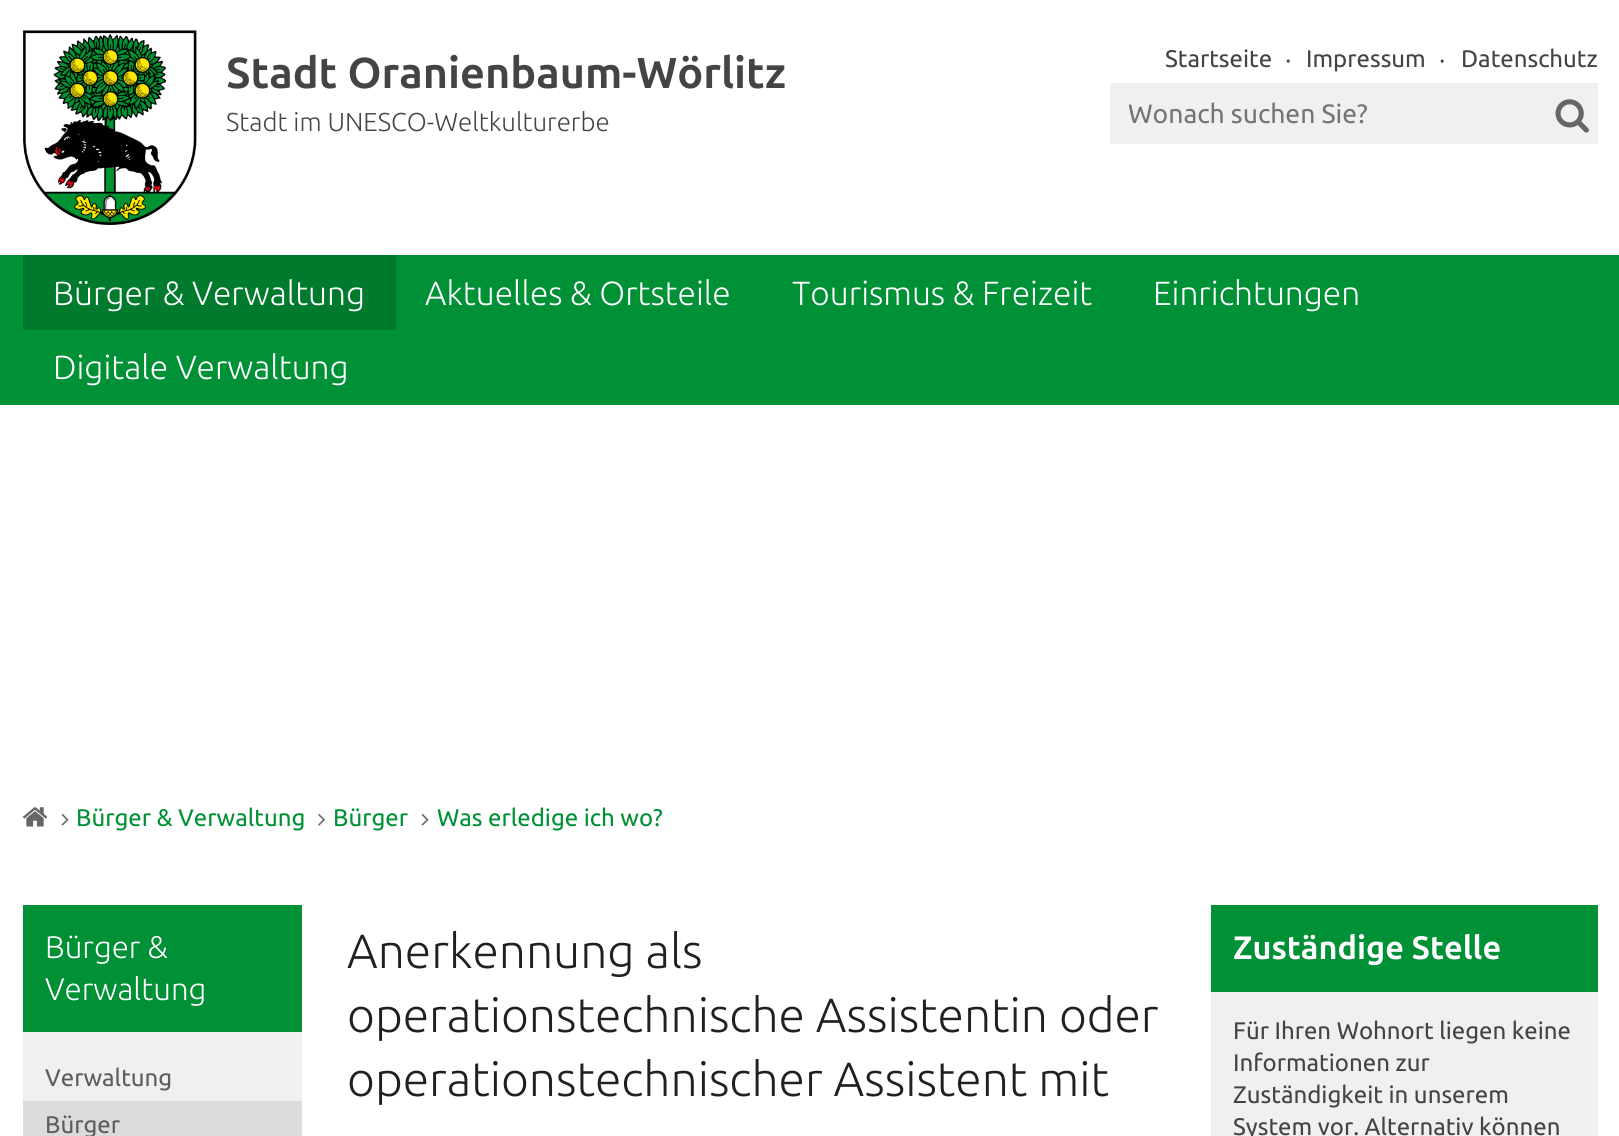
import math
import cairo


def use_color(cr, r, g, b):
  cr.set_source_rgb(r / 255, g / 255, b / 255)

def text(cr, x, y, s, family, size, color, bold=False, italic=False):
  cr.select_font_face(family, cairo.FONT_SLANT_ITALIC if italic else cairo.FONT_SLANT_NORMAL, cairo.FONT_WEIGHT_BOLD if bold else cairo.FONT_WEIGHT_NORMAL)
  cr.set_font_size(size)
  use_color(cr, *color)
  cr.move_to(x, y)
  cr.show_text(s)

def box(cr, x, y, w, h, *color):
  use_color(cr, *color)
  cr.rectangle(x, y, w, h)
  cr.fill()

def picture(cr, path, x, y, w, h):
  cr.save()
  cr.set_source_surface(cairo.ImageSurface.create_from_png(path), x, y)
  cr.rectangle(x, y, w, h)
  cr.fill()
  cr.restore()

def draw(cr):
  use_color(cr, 255, 255, 255)
  cr.paint()
  picture(cr, "img_01.png", 22, 30, 175, 195)
  box(cr, 1110, 83, 488, 61, 240, 240, 240)
  picture(cr, "img_02.png", 1555, 99, 34, 34)
  box(cr, 0, 255, 1619, 150, 0, 145, 54)
  box(cr, 23, 255, 373, 75, 0, 123, 46)
  picture(cr, "img_03.png", 23, 807, 25, 20)
  picture(cr, "img_04.png", 61, 814, 8, 12)
  picture(cr, "img_05.png", 318, 814, 7, 12)
  picture(cr, "img_04.png", 421, 814, 8, 12)
  box(cr, 23, 1032, 279, 69, 240, 240, 240)
  box(cr, 23, 905, 279, 127, 0, 145, 54)
  box(cr, 23, 1101, 279, 35, 219, 219, 219)
  box(cr, 1211, 992, 387, 144, 240, 240, 240)
  box(cr, 1211, 905, 387, 87, 0, 145, 54)
  text(cr, 226, 88, "Stadt Oranienbaum-Wörlitz", "Ubuntu", 43.25, (68, 68, 68), bold=True)
  text(cr, 226, 131, "Stadt im UNESCO-Weltkulturerbe", "Ubuntu Light", 25.9, (68, 68, 68))
  text(cr, 1165, 67, "Startseite", "Ubuntu", 24, (68, 68, 68))
  text(cr, 1285, 67, "‧", "Noto Sans", 24, (68, 68, 68))
  text(cr, 1306, 67, "Impressum", "Ubuntu", 24, (68, 68, 68))
  text(cr, 1439, 67, "‧", "Noto Sans", 24, (68, 68, 68))
  text(cr, 1461, 67, "Datenschutz", "Ubuntu", 24, (68, 68, 68))
  text(cr, 1128, 123, "Wonach suchen Sie?", "Ubuntu", 26.5, (117, 117, 117))
  text(cr, 53, 305, "Bürger & Verwaltung", "Ubuntu Light", 33.5, (255, 255, 255))
  text(cr, 425, 305, "Aktuelles & Ortsteile", "Ubuntu Light", 33.5, (255, 255, 255))
  text(cr, 792, 305, "Tourismus & Freizeit", "Ubuntu Light", 33.5, (255, 255, 255))
  text(cr, 1153, 305, "Einrichtungen", "Ubuntu Light", 33.5, (255, 255, 255))
  text(cr, 53, 379, "Digitale Verwaltung", "Ubuntu Light", 33.5, (255, 255, 255))
  text(cr, 76, 826, "Bürger & Verwaltung", "Ubuntu", 24, (0, 145, 54))
  text(cr, 333, 826, "Bürger", "Ubuntu", 24, (0, 145, 54))
  text(cr, 437, 826, "Was erledige ich wo?", "Ubuntu", 24, (0, 145, 54))
  text(cr, 45, 958, "Bürger &", "Ubuntu Light", 31.25, (255, 255, 255))
  text(cr, 45, 1000, "Verwaltung", "Ubuntu Light", 31.25, (255, 255, 255))
  text(cr, 45, 1086, "Verwaltung", "Ubuntu", 24, (93, 93, 93))
  text(cr, 45, 1133, "Bürger", "Ubuntu", 24, (93, 93, 93))
  text(cr, 347, 968, "Anerkennung als", "Ubuntu Light", 48, (32, 32, 32))
  text(cr, 347, 1032, "operationstechnische Assistentin oder", "Ubuntu Light", 48, (32, 32, 32))
  text(cr, 347, 1096, "operationstechnischer Assistent mit", "Ubuntu Light", 48, (32, 32, 32))
  text(cr, 1233, 959, "Zuständige Stelle", "Ubuntu", 32.5, (255, 255, 255), bold=True)
  text(cr, 1233, 1039, "Für Ihren Wohnort liegen keine", "Ubuntu", 24, (68, 68, 68))
  text(cr, 1233, 1071, "Informationen zur", "Ubuntu", 24, (68, 68, 68))
  text(cr, 1233, 1103, "Zuständigkeit in unserem", "Ubuntu", 24, (68, 68, 68))
  text(cr, 1233, 1135, "System vor. Alternativ können", "Ubuntu", 24, (68, 68, 68))


surface = cairo.ImageSurface(cairo.FORMAT_RGB24, 1619, 1136)
cr = cairo.Context(surface)
options = cairo.FontOptions()
options.set_hint_metrics(cairo.HINT_METRICS_OFF)
options.set_hint_style(cairo.HINT_STYLE_NONE)
cr.set_font_options(options)
cr.set_miter_limit(4)
draw(cr)
surface.write_to_png("out.png")
